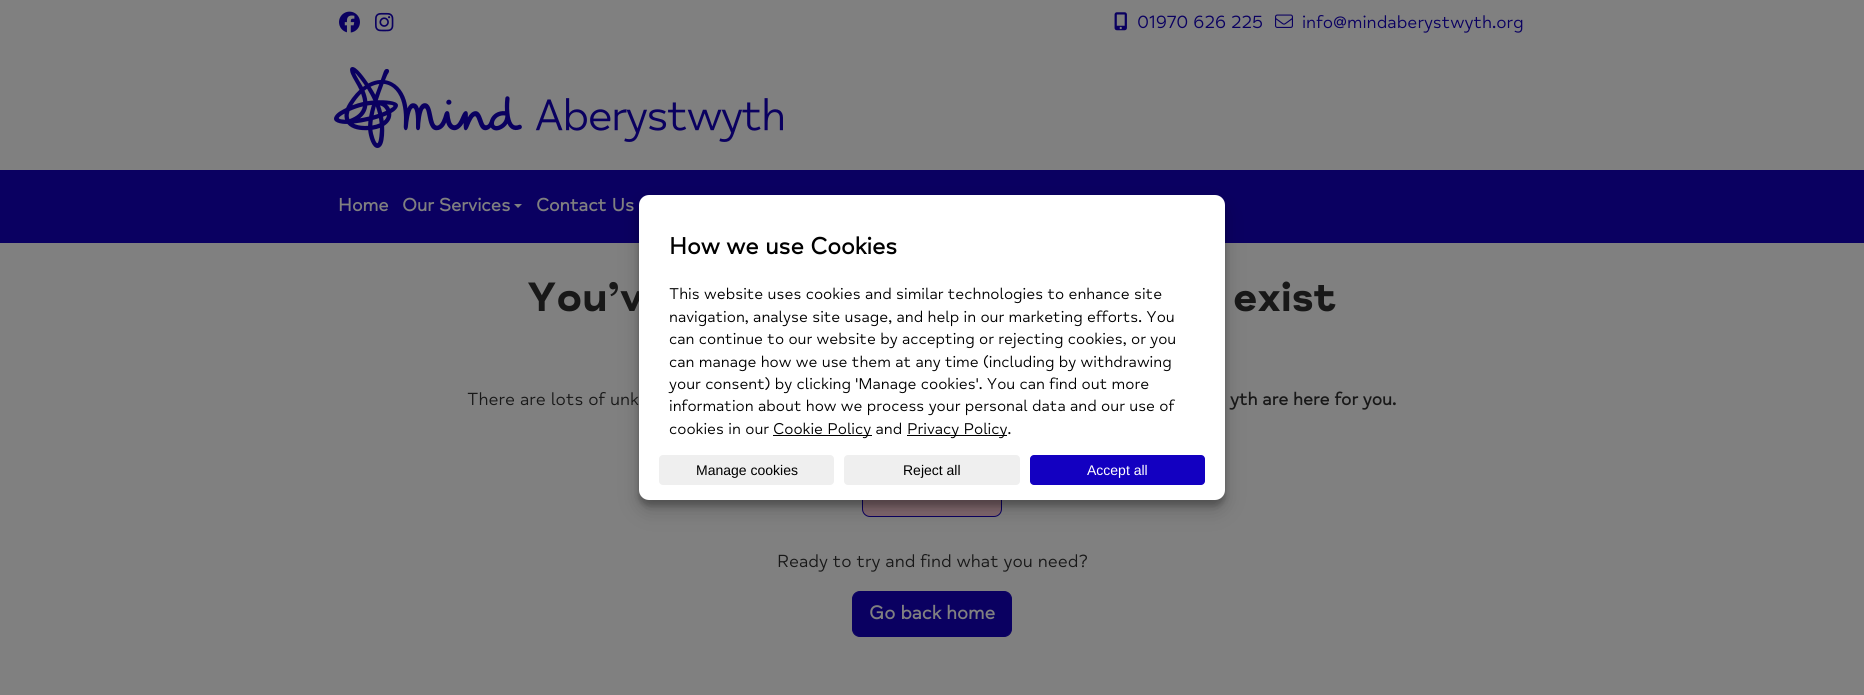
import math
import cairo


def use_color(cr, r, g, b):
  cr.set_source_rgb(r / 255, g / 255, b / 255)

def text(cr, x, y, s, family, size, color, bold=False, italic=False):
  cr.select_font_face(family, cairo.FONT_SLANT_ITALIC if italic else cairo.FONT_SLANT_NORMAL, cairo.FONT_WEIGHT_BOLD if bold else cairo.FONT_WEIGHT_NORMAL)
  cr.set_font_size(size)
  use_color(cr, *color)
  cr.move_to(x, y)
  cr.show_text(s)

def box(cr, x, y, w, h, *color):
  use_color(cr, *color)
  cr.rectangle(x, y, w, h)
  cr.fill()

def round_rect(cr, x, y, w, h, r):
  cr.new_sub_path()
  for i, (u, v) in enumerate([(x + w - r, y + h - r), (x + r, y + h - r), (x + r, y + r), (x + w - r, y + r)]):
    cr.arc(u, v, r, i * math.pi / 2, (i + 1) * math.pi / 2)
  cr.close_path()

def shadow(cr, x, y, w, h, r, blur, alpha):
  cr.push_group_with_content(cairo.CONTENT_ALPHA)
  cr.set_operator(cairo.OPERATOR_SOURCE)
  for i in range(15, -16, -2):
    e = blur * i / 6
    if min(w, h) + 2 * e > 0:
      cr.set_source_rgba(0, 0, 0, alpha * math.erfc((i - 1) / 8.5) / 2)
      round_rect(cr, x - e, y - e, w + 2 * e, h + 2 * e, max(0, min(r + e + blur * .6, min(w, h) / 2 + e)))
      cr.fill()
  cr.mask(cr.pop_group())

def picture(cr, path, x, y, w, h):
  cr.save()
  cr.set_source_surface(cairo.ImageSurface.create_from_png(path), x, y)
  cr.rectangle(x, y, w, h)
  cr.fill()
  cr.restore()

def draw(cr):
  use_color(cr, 128, 128, 128)
  cr.paint()
  picture(cr, "img_01.png", 339, 11, 21, 22)
  picture(cr, "img_02.png", 375, 12, 19, 20)
  picture(cr, "img_03.png", 1114, 12, 13, 19)
  picture(cr, "img_04.png", 1275, 14, 18, 14)
  picture(cr, "img_05.png", 334, 67, 449, 81)
  box(cr, 0, 170, 1864, 73, 10, 0, 97)
  use_color(cr, 128, 128, 128)
  cr.new_path()
  cr.move_to(514, 204)
  cr.line_to(522, 204)
  cr.line_to(518, 208)
  cr.close_path()
  cr.fill()
  use_color(cr, 128, 103, 109)
  round_rect(cr, 862.5, 470.5, 139, 46, 7.5)
  cr.fill_preserve()
  use_color(cr, 10, 0, 97)
  cr.set_line_width(1)
  cr.stroke()
  use_color(cr, 0, 0, 0)
  shadow(cr, 639, 201, 586, 305, 10, 3, 0.23)
  shadow(cr, 639, 205, 586, 305, 10, 10, 0.19)
  use_color(cr, 10, 0, 97)
  round_rect(cr, 852.5, 591.5, 159, 45, 7.5)
  cr.fill_preserve()
  cr.stroke()
  text(cr, 1137, 28, "01970 626 225", "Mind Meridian", 18, (10, 0, 97))
  text(cr, 1302, 28, "info@mindaberystwyth.org", "Mind Meridian", 18, (10, 0, 97))
  text(cr, 338, 211, "Home", "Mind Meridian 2", 18.5, (128, 128, 128), bold=True)
  text(cr, 402, 211, "Our Services", "Mind Meridian 2", 18.5, (128, 128, 128), bold=True)
  text(cr, 536, 211, "Contact Us", "Mind Meridian 2", 18.5, (128, 128, 128), bold=True)
  text(cr, 527, 311, "You’v", "Mind Meridian", 42, (24, 24, 24), bold=True)
  use_color(cr, 255, 255, 255)
  round_rect(cr, 639, 195, 586, 305, 10)
  cr.fill()
  box(cr, 907, 435, 100, 1, 0, 0, 0)
  text(cr, 907, 434, "Privacy Policy.", "Mind Meridian", 16, (0, 0, 0))
  box(cr, 773, 435, 99, 1, 0, 0, 0)
  text(cr, 773, 434, "Cookie Policy and", "Mind Meridian", 16, (0, 0, 0))
  text(cr, 669, 434, "cookies in our", "Mind Meridian", 16, (0, 0, 0))
  text(cr, 669, 411, "information about how we process your personal data and our use of", "Mind Meridian", 16, (0, 0, 0))
  text(cr, 669, 389, "your consent) by clicking 'Manage cookies'. You can find out more", "Mind Meridian", 16, (0, 0, 0))
  text(cr, 669, 367, "can manage how we use them at any time (including by withdrawing", "Mind Meridian", 16, (0, 0, 0))
  text(cr, 669, 344, "can continue to our website by accepting or rejecting cookies, or you", "Mind Meridian", 16, (0, 0, 0))
  text(cr, 669, 322, "navigation, analyse site usage, and help in our marketing efforts. You", "Mind Meridian", 16, (0, 0, 0))
  text(cr, 669, 299, "This website uses cookies and similar technologies to enhance site", "Mind Meridian", 16, (0, 0, 0))
  text(cr, 669, 254, "How we use Cookies", "Mind Meridian 2", 24, (0, 0, 0), bold=True)
  use_color(cr, 19, 0, 193)
  round_rect(cr, 1030, 455, 175, 30, 4)
  cr.fill()
  text(cr, 1087, 475, "Accept all", "Liberation Sans", 14, (255, 255, 255))
  use_color(cr, 239, 239, 239)
  round_rect(cr, 844, 455, 176, 30, 4)
  cr.fill()
  text(cr, 903, 475, "Reject all", "Liberation Sans", 14, (0, 0, 0))
  use_color(cr, 239, 239, 239)
  round_rect(cr, 659, 455, 175, 30, 4)
  cr.fill()
  text(cr, 696, 475, "Manage cookies", "Liberation Sans", 14, (0, 0, 0))
  text(cr, 1233, 311, "exist", "Mind Meridian", 42, (24, 24, 24), bold=True)
  text(cr, 467, 405, "There are lots of unk", "Mind Meridian", 18, (24, 24, 24))
  text(cr, 1230, 405, "yth are here for you.", "Mind Meridian 2", 18, (24, 24, 24), bold=True)
  text(cr, 777, 567, "Ready to try and find what you need?", "Mind Meridian", 18, (24, 24, 24))
  text(cr, 869, 619, "Go back home", "Mind Meridian 2", 19.25, (128, 128, 128), bold=True)


surface = cairo.ImageSurface(cairo.FORMAT_RGB24, 1864, 695)
cr = cairo.Context(surface)
options = cairo.FontOptions()
options.set_hint_metrics(cairo.HINT_METRICS_OFF)
options.set_hint_style(cairo.HINT_STYLE_NONE)
cr.set_font_options(options)
cr.set_miter_limit(4)
draw(cr)
surface.write_to_png("out.png")
